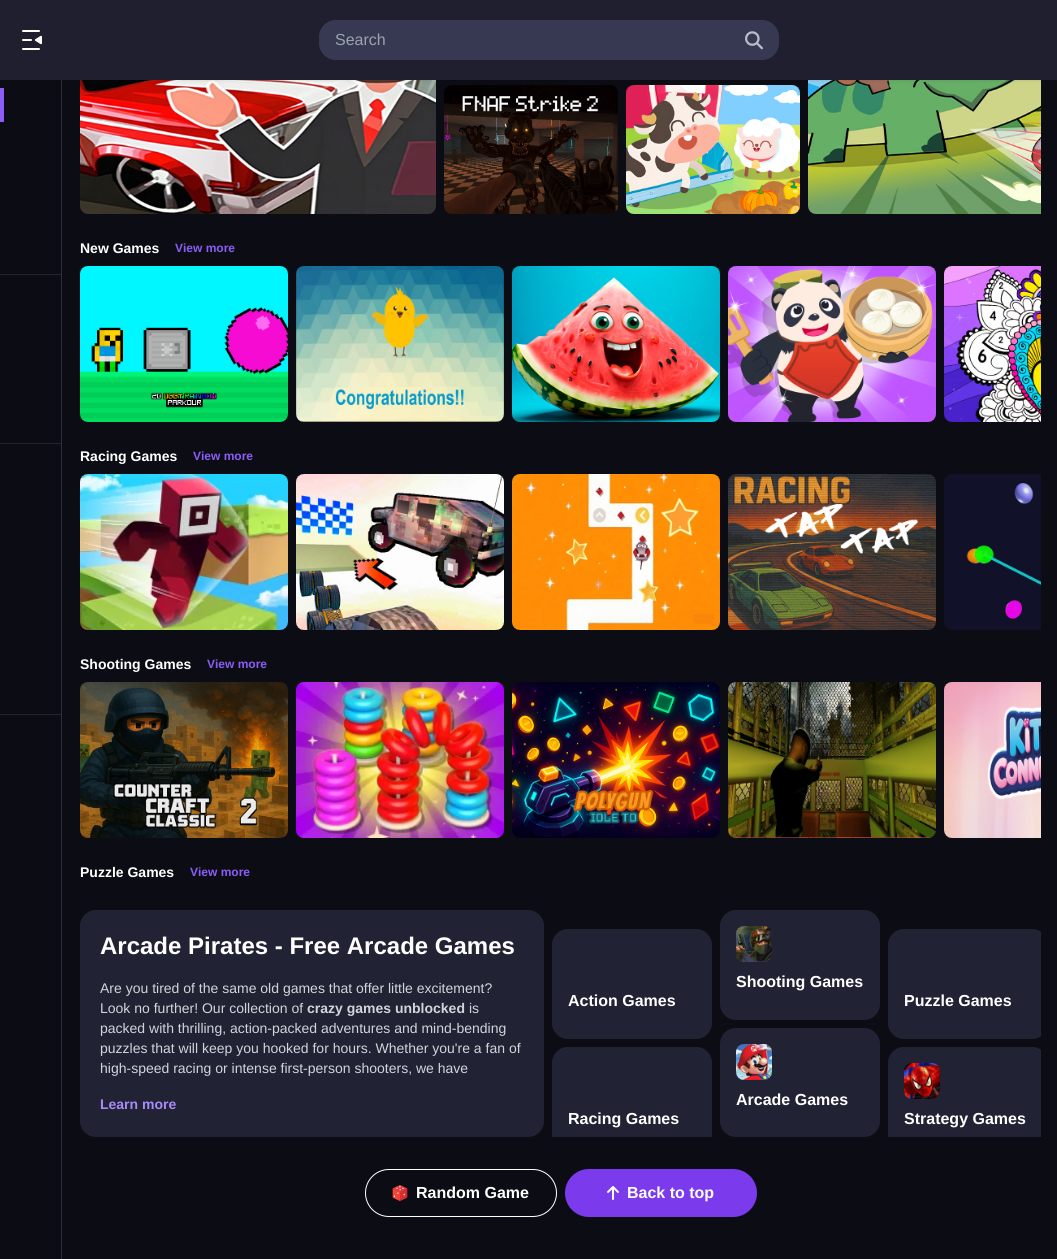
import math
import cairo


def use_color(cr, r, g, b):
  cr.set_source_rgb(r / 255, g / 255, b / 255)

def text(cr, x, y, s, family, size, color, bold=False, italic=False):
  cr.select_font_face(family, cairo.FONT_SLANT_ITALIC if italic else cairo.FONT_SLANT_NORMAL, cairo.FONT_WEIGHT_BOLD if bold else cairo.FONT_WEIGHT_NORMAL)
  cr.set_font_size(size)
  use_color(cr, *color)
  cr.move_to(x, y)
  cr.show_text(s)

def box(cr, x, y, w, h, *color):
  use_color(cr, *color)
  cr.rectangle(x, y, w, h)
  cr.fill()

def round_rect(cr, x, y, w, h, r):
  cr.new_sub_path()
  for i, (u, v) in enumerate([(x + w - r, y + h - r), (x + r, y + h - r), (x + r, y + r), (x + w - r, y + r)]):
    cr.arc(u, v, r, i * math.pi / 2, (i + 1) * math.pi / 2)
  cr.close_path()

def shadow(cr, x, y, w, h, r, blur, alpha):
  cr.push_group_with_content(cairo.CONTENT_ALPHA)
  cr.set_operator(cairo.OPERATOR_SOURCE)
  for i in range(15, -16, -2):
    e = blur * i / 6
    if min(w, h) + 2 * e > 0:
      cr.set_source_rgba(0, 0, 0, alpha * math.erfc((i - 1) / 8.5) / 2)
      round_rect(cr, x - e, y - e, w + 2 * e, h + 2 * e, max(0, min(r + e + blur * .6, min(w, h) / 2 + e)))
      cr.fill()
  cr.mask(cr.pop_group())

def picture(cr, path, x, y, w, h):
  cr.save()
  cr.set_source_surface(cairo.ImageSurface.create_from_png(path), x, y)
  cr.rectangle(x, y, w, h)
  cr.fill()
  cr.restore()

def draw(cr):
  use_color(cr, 12, 13, 20)
  cr.paint()
  box(cr, 61, 80, 1, 1179, 45, 46, 59)
  picture(cr, "img_03.png", 80, 80, 356, 134)
  picture(cr, "img_04.png", 444, 85, 174, 129)
  picture(cr, "img_05.png", 626, 85, 174, 129)
  picture(cr, "img_06.png", 808, 80, 233, 134)
  use_color(cr, 0, 0, 0)
  shadow(cr, 0, 3, 1057, 77, 0, 2, 0.14)
  box(cr, 0, 0, 1057, 80, 31, 31, 48)
  picture(cr, "img_01.png", 22, 30, 20, 20)
  use_color(cr, 55, 57, 82)
  round_rect(cr, 319, 20, 460, 40, 17)
  cr.fill()
  picture(cr, "img_02.png", 745, 31, 18, 19)
  box(cr, 0, 88, 4, 34, 139, 92, 246)
  box(cr, 0, 274, 61, 1, 35, 36, 43)
  box(cr, 0, 443, 61, 1, 35, 36, 43)
  box(cr, 0, 714, 61, 1, 35, 36, 43)
  picture(cr, "img_07.png", 80, 266, 208, 156)
  picture(cr, "img_08.png", 296, 266, 208, 156)
  picture(cr, "img_09.png", 512, 266, 208, 156)
  picture(cr, "img_10.png", 728, 266, 208, 156)
  picture(cr, "img_11.png", 944, 266, 97, 156)
  picture(cr, "img_12.png", 80, 474, 208, 156)
  picture(cr, "img_13.png", 296, 474, 208, 156)
  picture(cr, "img_14.png", 512, 474, 208, 156)
  picture(cr, "img_15.png", 728, 474, 208, 156)
  picture(cr, "img_16.png", 944, 474, 97, 156)
  picture(cr, "img_17.png", 80, 682, 208, 156)
  picture(cr, "img_18.png", 296, 682, 208, 156)
  picture(cr, "img_19.png", 512, 682, 208, 156)
  picture(cr, "img_20.png", 728, 682, 208, 156)
  picture(cr, "img_21.png", 944, 682, 97, 156)
  use_color(cr, 33, 34, 51)
  round_rect(cr, 80, 910, 464, 227, 16)
  cr.fill()
  round_rect(cr, 552, 929, 160, 110, 16)
  cr.fill()
  cr.new_path()
  cr.move_to(568, 1047)
  cr.line_to(696, 1047)
  cr.curve_to(705, 1047, 712, 1054, 712, 1063)
  cr.line_to(712, 1137)
  cr.line_to(552, 1137)
  cr.line_to(552, 1063)
  cr.curve_to(552, 1054, 559, 1047, 568, 1047)
  cr.close_path()
  cr.fill()
  round_rect(cr, 720, 910, 160, 110, 16)
  cr.fill()
  picture(cr, "img_22.png", 736, 926, 36, 36)
  round_rect(cr, 720, 1028, 160, 109, 16)
  cr.fill()
  picture(cr, "img_23.png", 736, 1044, 36, 36)
  cr.save()
  cr.rectangle(552, 910, 489, 227)
  cr.clip()
  round_rect(cr, 888, 929, 160, 110, 16)
  cr.fill()
  round_rect(cr, 888, 1047, 160, 109, 16)
  cr.fill()
  cr.restore()
  picture(cr, "img_24.png", 904, 1063, 36, 36)
  round_rect(cr, 365.5, 1169.5, 191, 47, 23.5)
  use_color(cr, 255, 255, 255)
  cr.set_line_width(1)
  cr.stroke()
  picture(cr, "img_25.png", 392, 1185, 16, 16)
  use_color(cr, 124, 58, 237)
  round_rect(cr, 565, 1169, 192, 48, 24)
  cr.fill()
  picture(cr, "img_26.png", 607, 1186, 12, 14)
  text(cr, 335, 45, "Search", "Liberation Sans", 16, (156, 163, 175))
  text(cr, 80, 253, "New Games", "Liberation Sans", 14, (255, 255, 255), bold=True)
  text(cr, 175, 252, "View more", "Liberation Sans", 12, (139, 92, 246), bold=True)
  text(cr, 80, 461, "Racing Games", "Liberation Sans", 14, (255, 255, 255), bold=True)
  text(cr, 193, 460, "View more", "Liberation Sans", 12, (139, 92, 246), bold=True)
  text(cr, 80, 669, "Shooting Games", "Liberation Sans", 14, (255, 255, 255), bold=True)
  text(cr, 207, 668, "View more", "Liberation Sans", 12, (139, 92, 246), bold=True)
  text(cr, 80, 877, "Puzzle Games", "Liberation Sans", 14, (255, 255, 255), bold=True)
  text(cr, 190, 876, "View more", "Liberation Sans", 12, (139, 92, 246), bold=True)
  text(cr, 100, 954, "Arcade Pirates - Free Arcade Games", "Liberation Sans", 24, (255, 255, 255), bold=True)
  text(cr, 100, 993, "Are you tired of the same old games that offer little excitement?", "Liberation Sans", 14, (209, 213, 219))
  text(cr, 100, 1013, "Look no further! Our collection of", "Liberation Sans", 14, (209, 213, 219))
  text(cr, 307, 1013, "crazy games unblocked", "Liberation Sans", 14, (209, 213, 219), bold=True)
  text(cr, 469, 1013, "is", "Liberation Sans", 14, (209, 213, 219))
  text(cr, 100, 1033, "packed with thrilling, action-packed adventures and mind-bending", "Liberation Sans", 14, (209, 213, 219))
  text(cr, 100, 1053, "puzzles that will keep you hooked for hours. Whether you're a fan of", "Liberation Sans", 14, (209, 213, 219))
  text(cr, 100, 1073, "high-speed racing or intense first-person shooters, we have", "Liberation Sans", 14, (209, 213, 219))
  text(cr, 100, 1109, "Learn more", "Liberation Sans", 14, (167, 139, 250), bold=True)
  text(cr, 568, 1006, "Action Games", "Liberation Sans", 16, (255, 255, 255), bold=True)
  text(cr, 568, 1124, "Racing Games", "Liberation Sans", 16, (255, 255, 255), bold=True)
  text(cr, 736, 987, "Shooting Games", "Liberation Sans", 16, (255, 255, 255), bold=True)
  text(cr, 736, 1105, "Arcade Games", "Liberation Sans", 16, (255, 255, 255), bold=True)
  text(cr, 904, 1006, "Puzzle Games", "Liberation Sans", 16, (255, 255, 255), bold=True)
  text(cr, 904, 1124, "Strategy Games", "Liberation Sans", 16, (255, 255, 255), bold=True)
  text(cr, 416, 1198, "Random Game", "Liberation Sans", 16, (255, 255, 255), bold=True)
  text(cr, 627, 1198, "Back to top", "Liberation Sans", 16, (255, 255, 255), bold=True)


surface = cairo.ImageSurface(cairo.FORMAT_RGB24, 1057, 1259)
cr = cairo.Context(surface)
options = cairo.FontOptions()
options.set_hint_metrics(cairo.HINT_METRICS_OFF)
options.set_hint_style(cairo.HINT_STYLE_NONE)
cr.set_font_options(options)
cr.set_miter_limit(4)
draw(cr)
surface.write_to_png("out.png")
